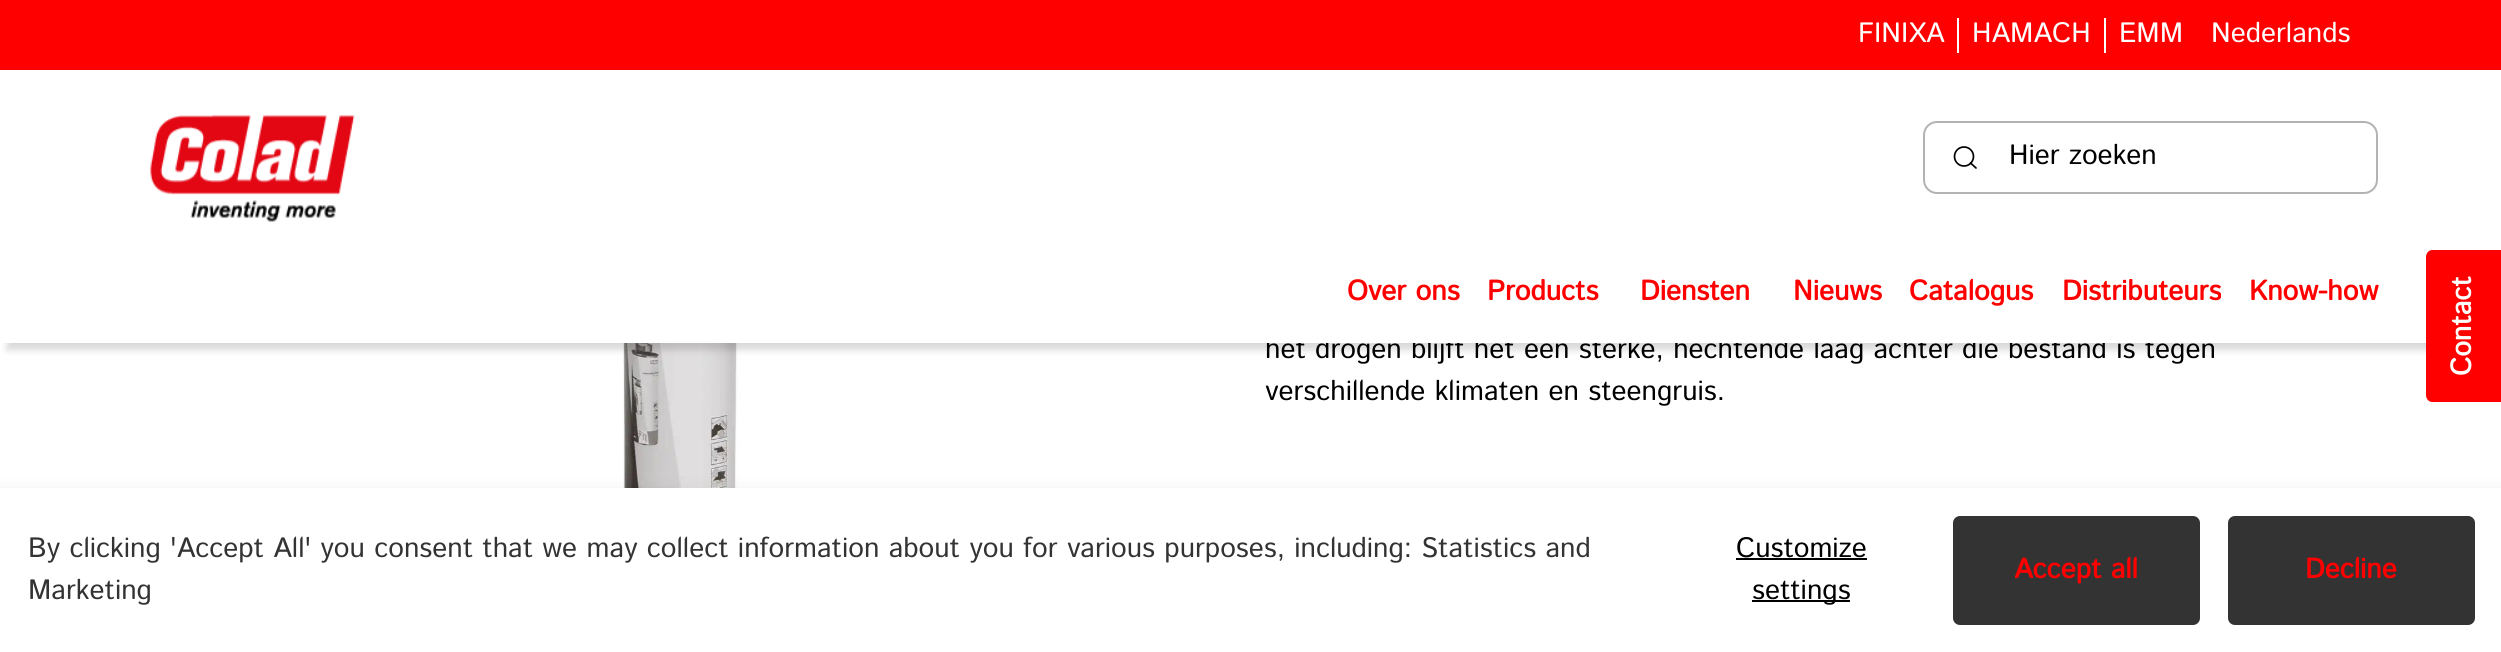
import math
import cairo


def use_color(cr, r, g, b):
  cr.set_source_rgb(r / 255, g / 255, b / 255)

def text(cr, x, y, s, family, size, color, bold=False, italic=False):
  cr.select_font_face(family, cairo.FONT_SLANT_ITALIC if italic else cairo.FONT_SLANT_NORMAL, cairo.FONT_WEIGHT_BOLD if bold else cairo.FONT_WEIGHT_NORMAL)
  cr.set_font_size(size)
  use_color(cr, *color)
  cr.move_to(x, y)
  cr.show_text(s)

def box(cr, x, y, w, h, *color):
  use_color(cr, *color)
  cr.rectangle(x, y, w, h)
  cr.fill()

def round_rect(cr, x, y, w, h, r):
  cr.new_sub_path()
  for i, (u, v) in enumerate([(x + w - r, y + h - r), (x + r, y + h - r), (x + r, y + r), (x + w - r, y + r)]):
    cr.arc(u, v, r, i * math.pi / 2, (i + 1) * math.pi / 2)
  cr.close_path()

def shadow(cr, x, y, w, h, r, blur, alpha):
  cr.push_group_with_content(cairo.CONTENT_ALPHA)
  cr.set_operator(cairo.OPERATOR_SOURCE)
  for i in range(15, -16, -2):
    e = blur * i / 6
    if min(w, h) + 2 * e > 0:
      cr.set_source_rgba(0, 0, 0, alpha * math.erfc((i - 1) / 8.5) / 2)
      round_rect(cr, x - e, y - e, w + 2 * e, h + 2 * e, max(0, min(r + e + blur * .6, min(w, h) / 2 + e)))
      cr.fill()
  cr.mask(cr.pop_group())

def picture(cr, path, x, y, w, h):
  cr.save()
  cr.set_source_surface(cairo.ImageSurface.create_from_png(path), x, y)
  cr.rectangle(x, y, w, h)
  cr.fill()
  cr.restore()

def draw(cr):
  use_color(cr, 255, 255, 255)
  cr.paint()
  box(cr, 0, 0, 2501, 70, 255, 0, 0)
  box(cr, 1957, 18, 2, 35, 255, 255, 255)
  box(cr, 2104, 18, 2, 35, 255, 255, 255)
  picture(cr, "img_01.png", 150, 115, 205, 107)
  round_rect(cr, 1924, 122, 453, 71, 13)
  use_color(cr, 179, 179, 179)
  cr.stroke()
  cr.arc(1964, 156.5, 9.5, 0, 2 * math.pi)
  use_color(cr, 0, 0, 0)
  cr.set_line_width(1.7)
  cr.stroke()
  cr.new_path()
  cr.move_to(1976, 168)
  cr.line_to(1970.5, 163)
  cr.set_line_cap(cairo.LINE_CAP_ROUND)
  cr.set_line_join(cairo.LINE_JOIN_ROUND)
  cr.stroke()
  picture(cr, "img_02.png", 621, 343, 120, 145)
  use_color(cr, 0, 0, 0)
  shadow(cr, 7, 252, 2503, 98, 0, 3.5, 0.15)
  shadow(cr, 0, 502, 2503, 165, 0, 14, 0.15)
  box(cr, 0, 488, 2501, 164, 255, 255, 255)
  box(cr, 1736, 558, 131, 2, 0, 0, 0)
  box(cr, 1752, 600, 98, 2, 0, 0, 0)
  use_color(cr, 51, 51, 51)
  round_rect(cr, 1953, 516, 247, 109, 7)
  cr.fill()
  round_rect(cr, 2228, 516, 247, 109, 7)
  cr.fill()
  text(cr, 1858, 42, "FINIXA", "Istok Web", 28, (255, 255, 255))
  text(cr, 1972, 42, "HAMACH", "Istok Web", 28, (255, 255, 255))
  text(cr, 2119, 42, "EMM", "Istok Web", 28, (255, 255, 255))
  text(cr, 2211, 42, "Nederlands", "Istok Web", 28, (255, 255, 255))
  text(cr, 2009, 164, "Hier zoeken", "Istok Web", 28, (0, 0, 0))
  text(cr, 1265, 358, "het drogen blijft het een sterke, hechtende laag achter die bestand is tegen", "Istok Web", 28, (0, 0, 0))
  box(cr, 2, 247, 2499, 96, 255, 255, 255)
  text(cr, 2062, 300, "Distributeurs", "Istok Web", 28, (255, 0, 0), bold=True)
  text(cr, 1909, 300, "Catalogus", "Istok Web", 28, (255, 0, 0), bold=True)
  text(cr, 1793, 300, "Nieuws", "Istok Web", 28, (255, 0, 0), bold=True)
  text(cr, 1640, 300, "Diensten", "Istok Web", 28, (255, 0, 0), bold=True)
  text(cr, 2249, 300, "Know-how", "Istok Web", 28, (255, 0, 0), bold=True)
  text(cr, 1487, 300, "Products", "Istok Web", 28, (255, 0, 0), bold=True)
  text(cr, 1347, 300, "Over ons", "Istok Web", 28, (255, 0, 0), bold=True)
  text(cr, 1265, 400, "verschillende klimaten en steengruis.", "Istok Web", 28, (0, 0, 0))
  use_color(cr, 255, 0, 0)
  cr.new_path()
  cr.move_to(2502, 402)
  cr.line_to(2432, 402)
  cr.curve_to(2429, 402, 2426, 399, 2426, 395)
  cr.line_to(2426, 257)
  cr.curve_to(2426, 253, 2429, 250, 2432, 250)
  cr.line_to(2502, 250)
  cr.close_path()
  cr.fill()
  cr.save()
  cr.translate(2471, 376)
  cr.rotate(-90 * math.pi / 180)
  text(cr, 0, 0, "Contact", "Istok Web", 28, (255, 255, 255), bold=True)
  cr.restore()
  text(cr, 28, 557, "By clicking 'Accept All' you consent that we may collect information about you for various purposes, including: Statistics and", "Istok Web", 28, (51, 51, 51))
  text(cr, 28, 599, "Marketing", "Istok Web", 28, (51, 51, 51))
  text(cr, 1736, 557, "Customize", "Istok Web", 28, (0, 0, 0))
  text(cr, 1752, 599, "settings", "Istok Web", 28, (0, 0, 0))
  text(cr, 2014, 578, "Accept all", "Istok Web", 28, (255, 0, 0), bold=True)
  text(cr, 2305, 578, "Decline", "Istok Web", 28, (255, 0, 0), bold=True)


surface = cairo.ImageSurface(cairo.FORMAT_RGB24, 2501, 652)
cr = cairo.Context(surface)
options = cairo.FontOptions()
options.set_hint_metrics(cairo.HINT_METRICS_OFF)
options.set_hint_style(cairo.HINT_STYLE_NONE)
cr.set_font_options(options)
cr.set_miter_limit(4)
draw(cr)
surface.write_to_png("out.png")
